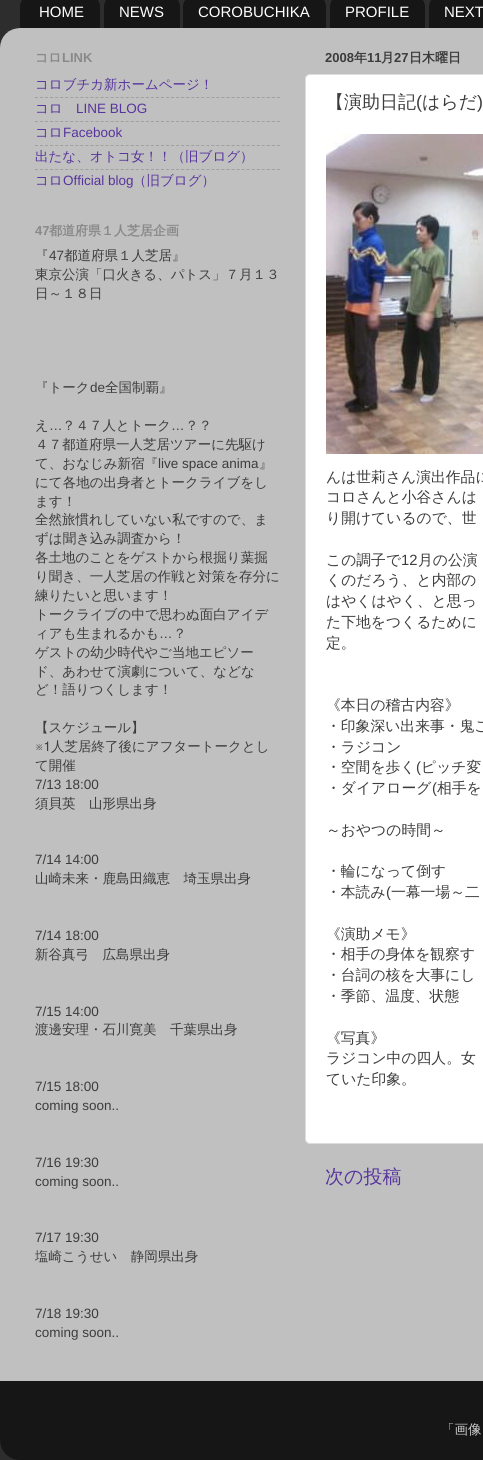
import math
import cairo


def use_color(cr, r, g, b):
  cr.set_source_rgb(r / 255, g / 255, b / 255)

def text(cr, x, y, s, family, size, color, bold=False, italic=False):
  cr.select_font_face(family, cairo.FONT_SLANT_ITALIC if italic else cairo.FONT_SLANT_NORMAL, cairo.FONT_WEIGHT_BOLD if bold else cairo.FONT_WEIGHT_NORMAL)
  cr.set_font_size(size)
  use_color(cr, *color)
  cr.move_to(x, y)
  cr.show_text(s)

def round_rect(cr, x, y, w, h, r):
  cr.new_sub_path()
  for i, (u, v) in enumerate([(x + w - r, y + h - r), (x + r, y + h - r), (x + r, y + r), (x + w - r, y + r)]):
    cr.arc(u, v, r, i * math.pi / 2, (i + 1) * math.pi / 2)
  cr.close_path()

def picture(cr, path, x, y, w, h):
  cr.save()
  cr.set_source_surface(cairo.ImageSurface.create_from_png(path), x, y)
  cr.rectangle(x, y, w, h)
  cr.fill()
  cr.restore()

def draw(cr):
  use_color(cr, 45, 45, 45)
  cr.paint()
  picture(cr, "img_01.png", 20, 0, 80, 28)
  picture(cr, "img_02.png", 104, 0, 76, 28)
  picture(cr, "img_03.png", 183, 0, 143, 28)
  picture(cr, "img_04.png", 330, 0, 95, 28)
  picture(cr, "img_05.png", 429, 0, 54, 28)
  picture(cr, "img_06.png", 0, 28, 483, 1353)
  cr.new_path()
  cr.move_to(35, 97.5)
  cr.line_to(280, 97.5)
  use_color(cr, 160, 160, 160)
  cr.set_line_width(1)
  cr.set_dash([3, 2.04])
  cr.stroke()
  cr.new_path()
  cr.move_to(35, 121.5)
  cr.line_to(280, 121.5)
  cr.stroke()
  cr.new_path()
  cr.move_to(35, 145.5)
  cr.line_to(280, 145.5)
  cr.stroke()
  cr.new_path()
  cr.move_to(35, 169.5)
  cr.line_to(280, 169.5)
  cr.stroke()
  use_color(cr, 255, 255, 255)
  round_rect(cr, 305.5, 74.5, 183, 1069, 4.5)
  cr.fill_preserve()
  use_color(cr, 221, 221, 221)
  cr.set_dash([])
  cr.stroke()
  picture(cr, "img_07.png", 326, 134, 157, 320)
  picture(cr, "img_08.png", 0, 1381, 483, 79)
  text(cr, 39, 17, "HOME", "Liberation Sans", 15, (255, 255, 255))
  text(cr, 119, 17, "NEWS", "Liberation Sans", 15, (255, 255, 255))
  text(cr, 198, 17, "COROBUCHIKA", "Liberation Sans", 15, (255, 255, 255))
  text(cr, 345, 17, "PROFILE", "Liberation Sans", 15, (255, 255, 255))
  text(cr, 444, 17, "NEXT", "Liberation Sans", 15, (255, 255, 255))
  text(cr, 35, 62, "コロ", "WenQuanYi Zen Hei", 13, (137, 137, 137), bold=True)
  text(cr, 62, 62, "LINK", "Liberation Sans", 13, (137, 137, 137), bold=True)
  text(cr, 35, 89, "コロブチカ新ホームページ！", "WenQuanYi Zen Hei Medium", 13.5, (88, 52, 157))
  text(cr, 35, 113, "コロ", "WenQuanYi Zen Hei Medium", 13.5, (88, 52, 157))
  text(cr, 76, 113, "LINE BLOG", "Liberation Sans", 13.5, (88, 52, 157))
  text(cr, 35, 137, "コロ", "WenQuanYi Zen Hei Medium", 13.5, (88, 52, 157))
  text(cr, 63, 137, "Facebook", "Liberation Sans", 13.5, (88, 52, 157))
  text(cr, 35, 161, "出たな、オトコ女！！（旧ブログ）", "WenQuanYi Zen Hei Medium", 13.5, (88, 52, 157))
  text(cr, 35, 185, "コロ", "WenQuanYi Zen Hei Medium", 13.5, (88, 52, 157))
  text(cr, 63, 185, "Official blog", "Liberation Sans", 13.5, (88, 52, 157))
  text(cr, 133, 185, "（旧ブログ）", "WenQuanYi Zen Hei Medium", 13.5, (88, 52, 157))
  text(cr, 35, 235, "47", "Liberation Sans", 13, (137, 137, 137), bold=True)
  text(cr, 49, 235, "都道府県１人芝居企画", "WenQuanYi Zen Hei", 13, (137, 137, 137), bold=True)
  text(cr, 35, 260, "『", "WenQuanYi Zen Hei Medium", 13.5, (60, 60, 60))
  text(cr, 49, 260, "47", "Liberation Sans", 13.5, (60, 60, 60))
  text(cr, 64, 260, "都道府県１人芝居』", "WenQuanYi Zen Hei Medium", 13.5, (60, 60, 60))
  text(cr, 35, 279, "東京公演「口火きる、パトス」７月１３", "WenQuanYi Zen Hei Medium", 13.5, (60, 60, 60))
  text(cr, 35, 298, "日～１８日", "WenQuanYi Zen Hei Medium", 13.5, (60, 60, 60))
  text(cr, 35, 392, "『トーク", "WenQuanYi Zen Hei Medium", 13.5, (60, 60, 60))
  text(cr, 90, 392, "de", "Liberation Sans", 13.5, (60, 60, 60))
  text(cr, 105, 392, "全国制覇』", "WenQuanYi Zen Hei Medium", 13.5, (60, 60, 60))
  text(cr, 35, 430, "え", "WenQuanYi Zen Hei Medium", 13.5, (60, 60, 60))
  text(cr, 49, 430, "…", "Liberation Sans", 13.5, (60, 60, 60))
  text(cr, 62, 430, "？４７人とトーク", "WenQuanYi Zen Hei Medium", 13.5, (60, 60, 60))
  text(cr, 171, 430, "…", "Liberation Sans", 13.5, (60, 60, 60))
  text(cr, 185, 430, "？？", "WenQuanYi Zen Hei Medium", 13.5, (60, 60, 60))
  text(cr, 35, 449, "４７都道府県一人芝居ツアーに先駆け", "WenQuanYi Zen Hei Medium", 13.5, (60, 60, 60))
  text(cr, 35, 468, "て、おなじみ新宿『", "WenQuanYi Zen Hei Medium", 13.5, (60, 60, 60))
  text(cr, 158, 468, "live space anima", "Liberation Sans", 13.5, (60, 60, 60))
  text(cr, 259, 468, "』", "WenQuanYi Zen Hei Medium", 13.5, (60, 60, 60))
  text(cr, 35, 487, "にて各地の出身者とトークライブをし", "WenQuanYi Zen Hei Medium", 13.5, (60, 60, 60))
  text(cr, 35, 506, "ます！", "WenQuanYi Zen Hei Medium", 13.5, (60, 60, 60))
  text(cr, 35, 524, "全然旅慣れしていない私ですので、ま", "WenQuanYi Zen Hei Medium", 13.5, (60, 60, 60))
  text(cr, 35, 543, "ずは聞き込み調査から！", "WenQuanYi Zen Hei Medium", 13.5, (60, 60, 60))
  text(cr, 35, 562, "各土地のことをゲストから根掘り葉掘", "WenQuanYi Zen Hei Medium", 13.5, (60, 60, 60))
  text(cr, 35, 581, "り聞き、一人芝居の作戦と対策を存分に", "WenQuanYi Zen Hei Medium", 13.5, (60, 60, 60))
  text(cr, 35, 600, "練りたいと思います！", "WenQuanYi Zen Hei Medium", 13.5, (60, 60, 60))
  text(cr, 35, 619, "トークライブの中で思わぬ面白アイデ", "WenQuanYi Zen Hei Medium", 13.5, (60, 60, 60))
  text(cr, 35, 638, "ィアも生まれるかも", "WenQuanYi Zen Hei Medium", 13.5, (60, 60, 60))
  text(cr, 159, 638, "…", "Liberation Sans", 13.5, (60, 60, 60))
  text(cr, 173, 638, "？", "WenQuanYi Zen Hei Medium", 13.5, (60, 60, 60))
  text(cr, 35, 657, "ゲストの幼少時代やご当地エピソー", "WenQuanYi Zen Hei Medium", 13.5, (60, 60, 60))
  text(cr, 35, 676, "ド、あわせて演劇について、などな", "WenQuanYi Zen Hei Medium", 13.5, (60, 60, 60))
  text(cr, 35, 694, "ど！語りつくします！", "WenQuanYi Zen Hei Medium", 13.5, (60, 60, 60))
  text(cr, 35, 732, "【スケジュール】", "WenQuanYi Zen Hei Medium", 13.5, (60, 60, 60))
  text(cr, 35, 751, "※1", "FreeSans", 13.5, (60, 60, 60))
  text(cr, 51, 751, "人芝居終了後にアフタートークとし", "WenQuanYi Zen Hei Medium", 13.5, (60, 60, 60))
  text(cr, 35, 770, "て開催", "WenQuanYi Zen Hei Medium", 13.5, (60, 60, 60))
  text(cr, 35, 789, "7/13 18:00", "Liberation Sans", 13.5, (60, 60, 60))
  text(cr, 35, 808, "須貝英　山形県出身", "WenQuanYi Zen Hei Medium", 13.5, (60, 60, 60))
  text(cr, 35, 864, "7/14 14:00", "Liberation Sans", 13.5, (60, 60, 60))
  text(cr, 35, 883, "山崎未来・鹿島田織恵　埼玉県出身", "WenQuanYi Zen Hei Medium", 13.5, (60, 60, 60))
  text(cr, 35, 940, "7/14 18:00", "Liberation Sans", 13.5, (60, 60, 60))
  text(cr, 35, 959, "新谷真弓　広島県出身", "WenQuanYi Zen Hei Medium", 13.5, (60, 60, 60))
  text(cr, 35, 1016, "7/15 14:00", "Liberation Sans", 13.5, (60, 60, 60))
  text(cr, 35, 1034, "渡邊安理・石川寛美　千葉県出身", "WenQuanYi Zen Hei Medium", 13.5, (60, 60, 60))
  text(cr, 35, 1091, "7/15 18:00", "Liberation Sans", 13.5, (60, 60, 60))
  text(cr, 35, 1110, "coming soon..", "Liberation Sans", 13.5, (60, 60, 60))
  text(cr, 35, 1167, "7/16 19:30", "Liberation Sans", 13.5, (60, 60, 60))
  text(cr, 35, 1186, "coming soon..", "Liberation Sans", 13.5, (60, 60, 60))
  text(cr, 35, 1242, "7/17 19:30", "Liberation Sans", 13.5, (60, 60, 60))
  text(cr, 35, 1261, "塩崎こうせい　静岡県出身", "WenQuanYi Zen Hei Medium", 13.5, (60, 60, 60))
  text(cr, 35, 1318, "7/18 19:30", "Liberation Sans", 13.5, (60, 60, 60))
  text(cr, 35, 1337, "coming soon..", "Liberation Sans", 13.5, (60, 60, 60))
  text(cr, 325, 62, "2008", "Liberation Sans", 13, (60, 60, 60), bold=True)
  text(cr, 354, 62, "年", "WenQuanYi Zen Hei", 13, (60, 60, 60), bold=True)
  text(cr, 367, 62, "11", "Liberation Sans", 13, (60, 60, 60), bold=True)
  text(cr, 381, 62, "月", "WenQuanYi Zen Hei", 13, (60, 60, 60), bold=True)
  text(cr, 394, 62, "27", "Liberation Sans", 13, (60, 60, 60), bold=True)
  text(cr, 409, 62, "日木曜日", "WenQuanYi Zen Hei", 13, (60, 60, 60), bold=True)
  text(cr, 326, 108, "【演助日記", "WenQuanYi Zen Hei Medium", 18, (60, 60, 60))
  text(cr, 416, 108, "(", "Liberation Sans", 18, (60, 60, 60))
  text(cr, 422, 108, "はらだ", "WenQuanYi Zen Hei Medium", 18, (60, 60, 60))
  text(cr, 477, 108, ")", "Liberation Sans", 18, (60, 60, 60))
  text(cr, 326, 482, "んは世莉さん演出作品に", "WenQuanYi Zen Hei Medium", 14.8, (60, 60, 60))
  text(cr, 326, 502, "コロさんと小谷さんは", "WenQuanYi Zen Hei Medium", 14.8, (60, 60, 60))
  text(cr, 326, 523, "り開けているので、世", "WenQuanYi Zen Hei Medium", 14.8, (60, 60, 60))
  text(cr, 326, 565, "この調子で", "WenQuanYi Zen Hei Medium", 14.8, (60, 60, 60))
  text(cr, 401, 565, "12", "Liberation Sans", 14.8, (60, 60, 60))
  text(cr, 418, 565, "月の公演", "WenQuanYi Zen Hei Medium", 14.8, (60, 60, 60))
  text(cr, 326, 585, "くのだろう、と内部の", "WenQuanYi Zen Hei Medium", 14.8, (60, 60, 60))
  text(cr, 326, 606, "はやくはやく、と思っ", "WenQuanYi Zen Hei Medium", 14.8, (60, 60, 60))
  text(cr, 326, 627, "た下地をつくるために", "WenQuanYi Zen Hei Medium", 14.8, (60, 60, 60))
  text(cr, 326, 648, "定。", "WenQuanYi Zen Hei Medium", 14.8, (60, 60, 60))
  text(cr, 326, 710, "《本日の稽古内容》", "WenQuanYi Zen Hei Medium", 14.8, (60, 60, 60))
  text(cr, 326, 731, "・印象深い出来事・鬼ご", "WenQuanYi Zen Hei Medium", 14.8, (60, 60, 60))
  text(cr, 326, 752, "・ラジコン", "WenQuanYi Zen Hei Medium", 14.8, (60, 60, 60))
  text(cr, 326, 772, "・空間を歩く", "WenQuanYi Zen Hei Medium", 14.8, (60, 60, 60))
  text(cr, 416, 772, "(", "Liberation Sans", 14.8, (60, 60, 60))
  text(cr, 421, 772, "ピッチ変", "WenQuanYi Zen Hei Medium", 14.8, (60, 60, 60))
  text(cr, 326, 793, "・ダイアローグ", "WenQuanYi Zen Hei Medium", 14.8, (60, 60, 60))
  text(cr, 432, 793, "(", "Liberation Sans", 14.8, (60, 60, 60))
  text(cr, 437, 793, "相手を", "WenQuanYi Zen Hei Medium", 14.8, (60, 60, 60))
  text(cr, 326, 835, "～おやつの時間～", "WenQuanYi Zen Hei Medium", 14.8, (60, 60, 60))
  text(cr, 326, 876, "・輪になって倒す", "WenQuanYi Zen Hei Medium", 14.8, (60, 60, 60))
  text(cr, 326, 897, "・本読み", "WenQuanYi Zen Hei Medium", 14.8, (60, 60, 60))
  text(cr, 386, 897, "(", "Liberation Sans", 14.8, (60, 60, 60))
  text(cr, 391, 897, "一幕一場～二", "WenQuanYi Zen Hei Medium", 14.8, (60, 60, 60))
  text(cr, 326, 939, "《演助メモ》", "WenQuanYi Zen Hei Medium", 14.8, (60, 60, 60))
  text(cr, 326, 959, "・相手の身体を観察す", "WenQuanYi Zen Hei Medium", 14.8, (60, 60, 60))
  text(cr, 326, 980, "・台詞の核を大事にし", "WenQuanYi Zen Hei Medium", 14.8, (60, 60, 60))
  text(cr, 326, 1001, "・季節、温度、状態", "WenQuanYi Zen Hei Medium", 14.8, (60, 60, 60))
  text(cr, 326, 1043, "《写真》", "WenQuanYi Zen Hei Medium", 14.8, (60, 60, 60))
  text(cr, 326, 1063, "ラジコン中の四人。女", "WenQuanYi Zen Hei Medium", 14.8, (60, 60, 60))
  text(cr, 326, 1084, "ていた印象。", "WenQuanYi Zen Hei Medium", 14.8, (60, 60, 60))
  text(cr, 325, 1183, "次の投稿", "WenQuanYi Zen Hei Medium", 19, (88, 52, 157))
  text(cr, 441, 1434, "「画像", "WenQuanYi Zen Hei Medium", 13.5, (204, 204, 204))


surface = cairo.ImageSurface(cairo.FORMAT_RGB24, 483, 1460)
cr = cairo.Context(surface)
options = cairo.FontOptions()
options.set_hint_metrics(cairo.HINT_METRICS_OFF)
options.set_hint_style(cairo.HINT_STYLE_NONE)
cr.set_font_options(options)
cr.set_miter_limit(4)
draw(cr)
surface.write_to_png("out.png")
